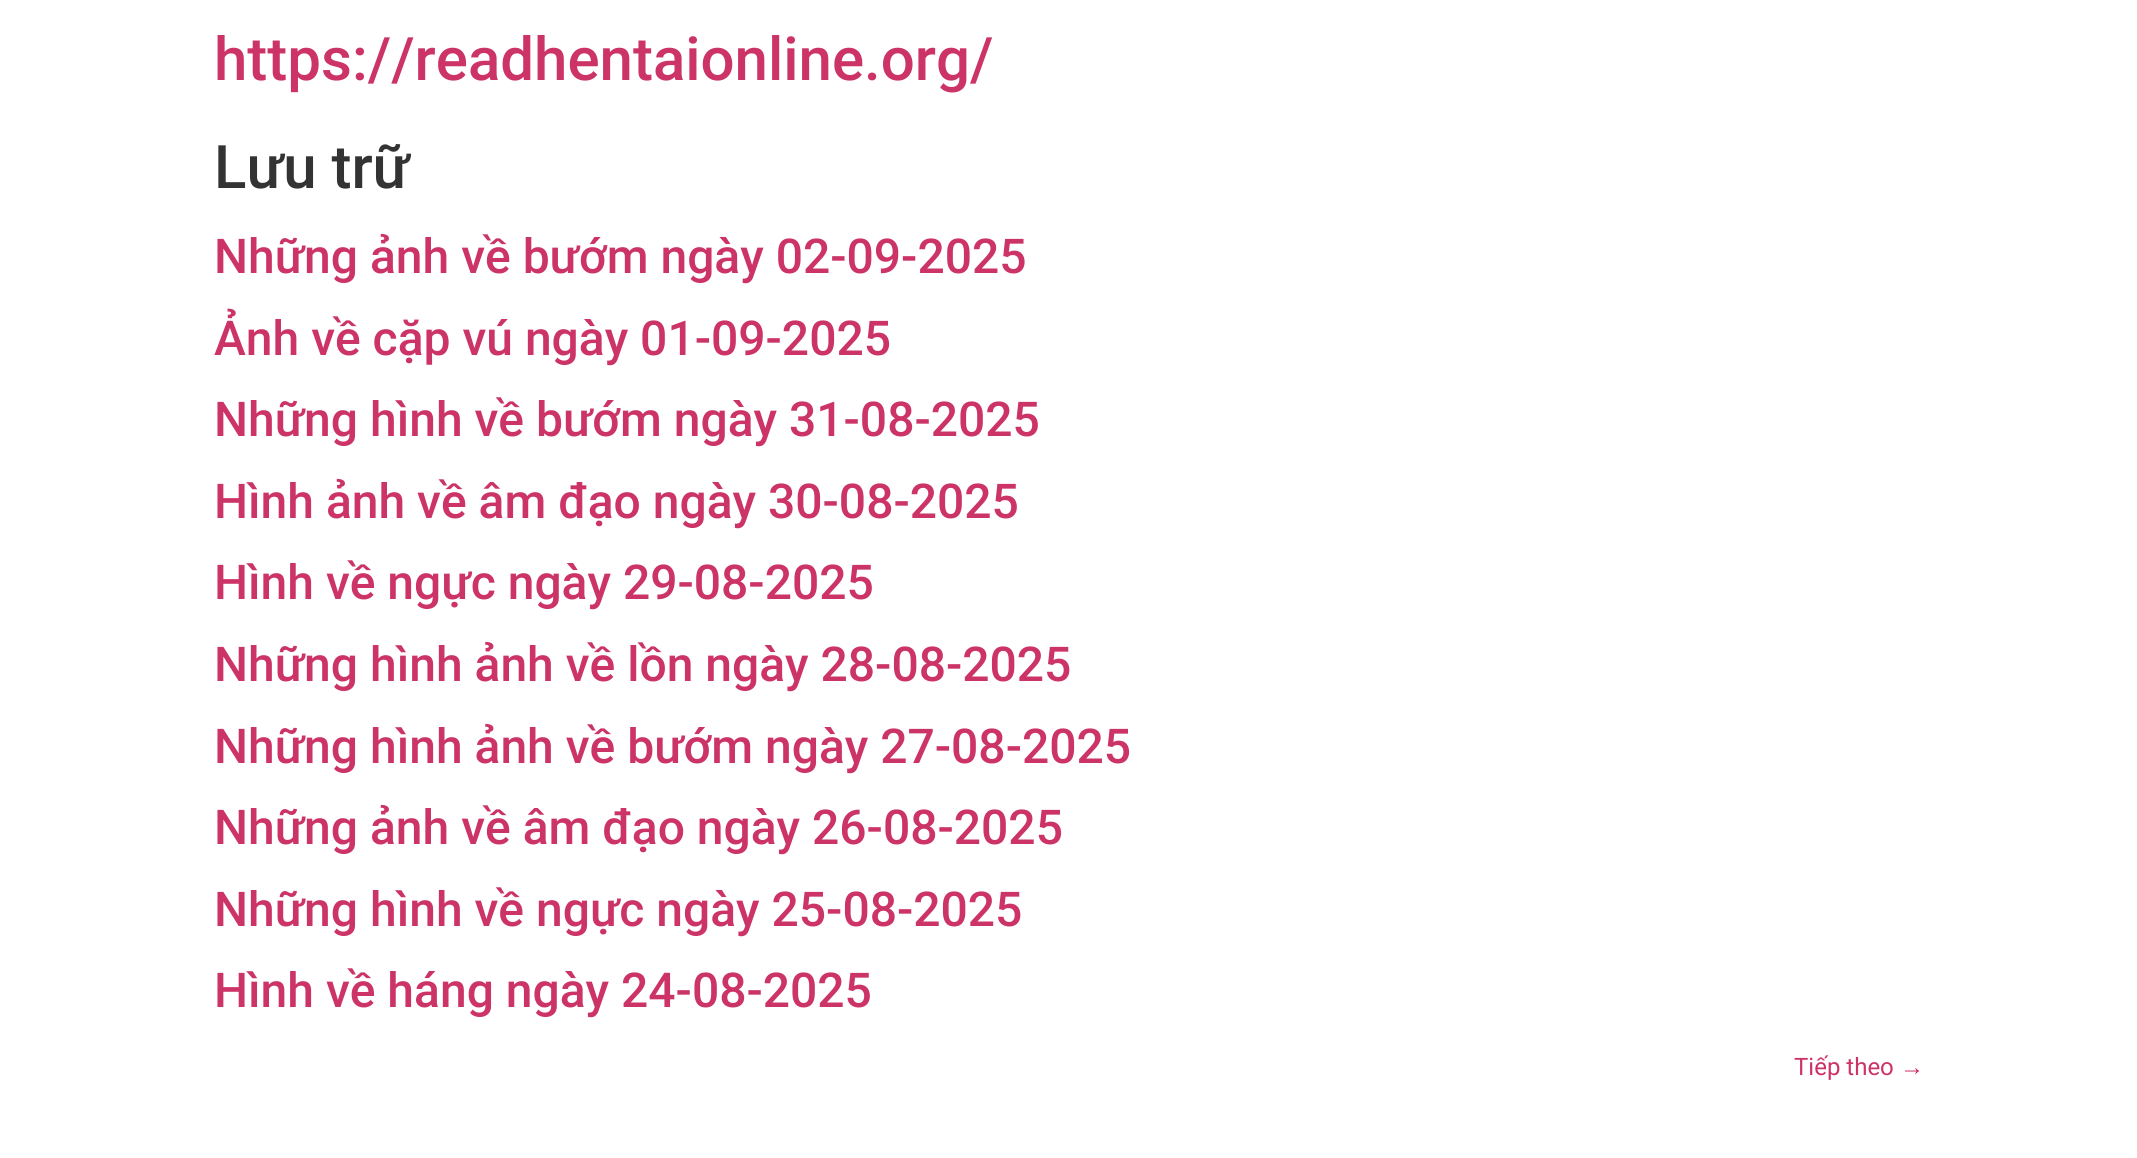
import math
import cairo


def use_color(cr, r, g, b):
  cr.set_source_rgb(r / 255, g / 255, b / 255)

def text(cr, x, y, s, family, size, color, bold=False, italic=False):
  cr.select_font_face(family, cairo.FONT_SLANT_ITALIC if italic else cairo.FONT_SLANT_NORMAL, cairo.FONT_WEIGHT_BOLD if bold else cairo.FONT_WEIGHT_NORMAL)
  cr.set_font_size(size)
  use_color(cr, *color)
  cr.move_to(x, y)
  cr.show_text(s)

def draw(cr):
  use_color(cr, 255, 255, 255)
  cr.paint()
  text(cr, 214, 80, "https://readhentaionline.org/", "Roboto Medium", 60, (204, 51, 102))
  text(cr, 214, 188, "Lưu trữ", "Roboto Medium", 60, (51, 51, 51))
  text(cr, 214, 273, "Những ảnh về bướm ngày 02-09-2025", "Roboto Medium", 48, (204, 51, 102))
  text(cr, 214, 355, "Ảnh về cặp vú ngày 01-09-2025", "Roboto Medium", 48, (204, 51, 102))
  text(cr, 214, 436, "Những hình về bướm ngày 31-08-2025", "Roboto Medium", 48, (204, 51, 102))
  text(cr, 214, 518, "Hình ảnh về âm đạo ngày 30-08-2025", "Roboto Medium", 48, (204, 51, 102))
  text(cr, 214, 599, "Hình về ngực ngày 29-08-2025", "Roboto Medium", 48, (204, 51, 102))
  text(cr, 214, 681, "Những hình ảnh về lồn ngày 28-08-2025", "Roboto Medium", 48, (204, 51, 102))
  text(cr, 214, 763, "Những hình ảnh về bướm ngày 27-08-2025", "Roboto Medium", 48, (204, 51, 102))
  text(cr, 214, 844, "Những ảnh về âm đạo ngày 26-08-2025", "Roboto Medium", 48, (204, 51, 102))
  text(cr, 214, 926, "Những hình về ngực ngày 25-08-2025", "Roboto Medium", 48, (204, 51, 102))
  text(cr, 214, 1007, "Hình về háng ngày 24-08-2025", "Roboto Medium", 48, (204, 51, 102))
  text(cr, 1794, 1075, "Tiếp theo", "Roboto", 24, (204, 51, 102))
  text(cr, 1900, 1075, "→", "Liberation Sans", 24, (204, 51, 102))


surface = cairo.ImageSurface(cairo.FORMAT_RGB24, 2137, 1158)
cr = cairo.Context(surface)
options = cairo.FontOptions()
options.set_hint_metrics(cairo.HINT_METRICS_OFF)
options.set_hint_style(cairo.HINT_STYLE_NONE)
cr.set_font_options(options)
cr.set_miter_limit(4)
draw(cr)
surface.write_to_png("out.png")
